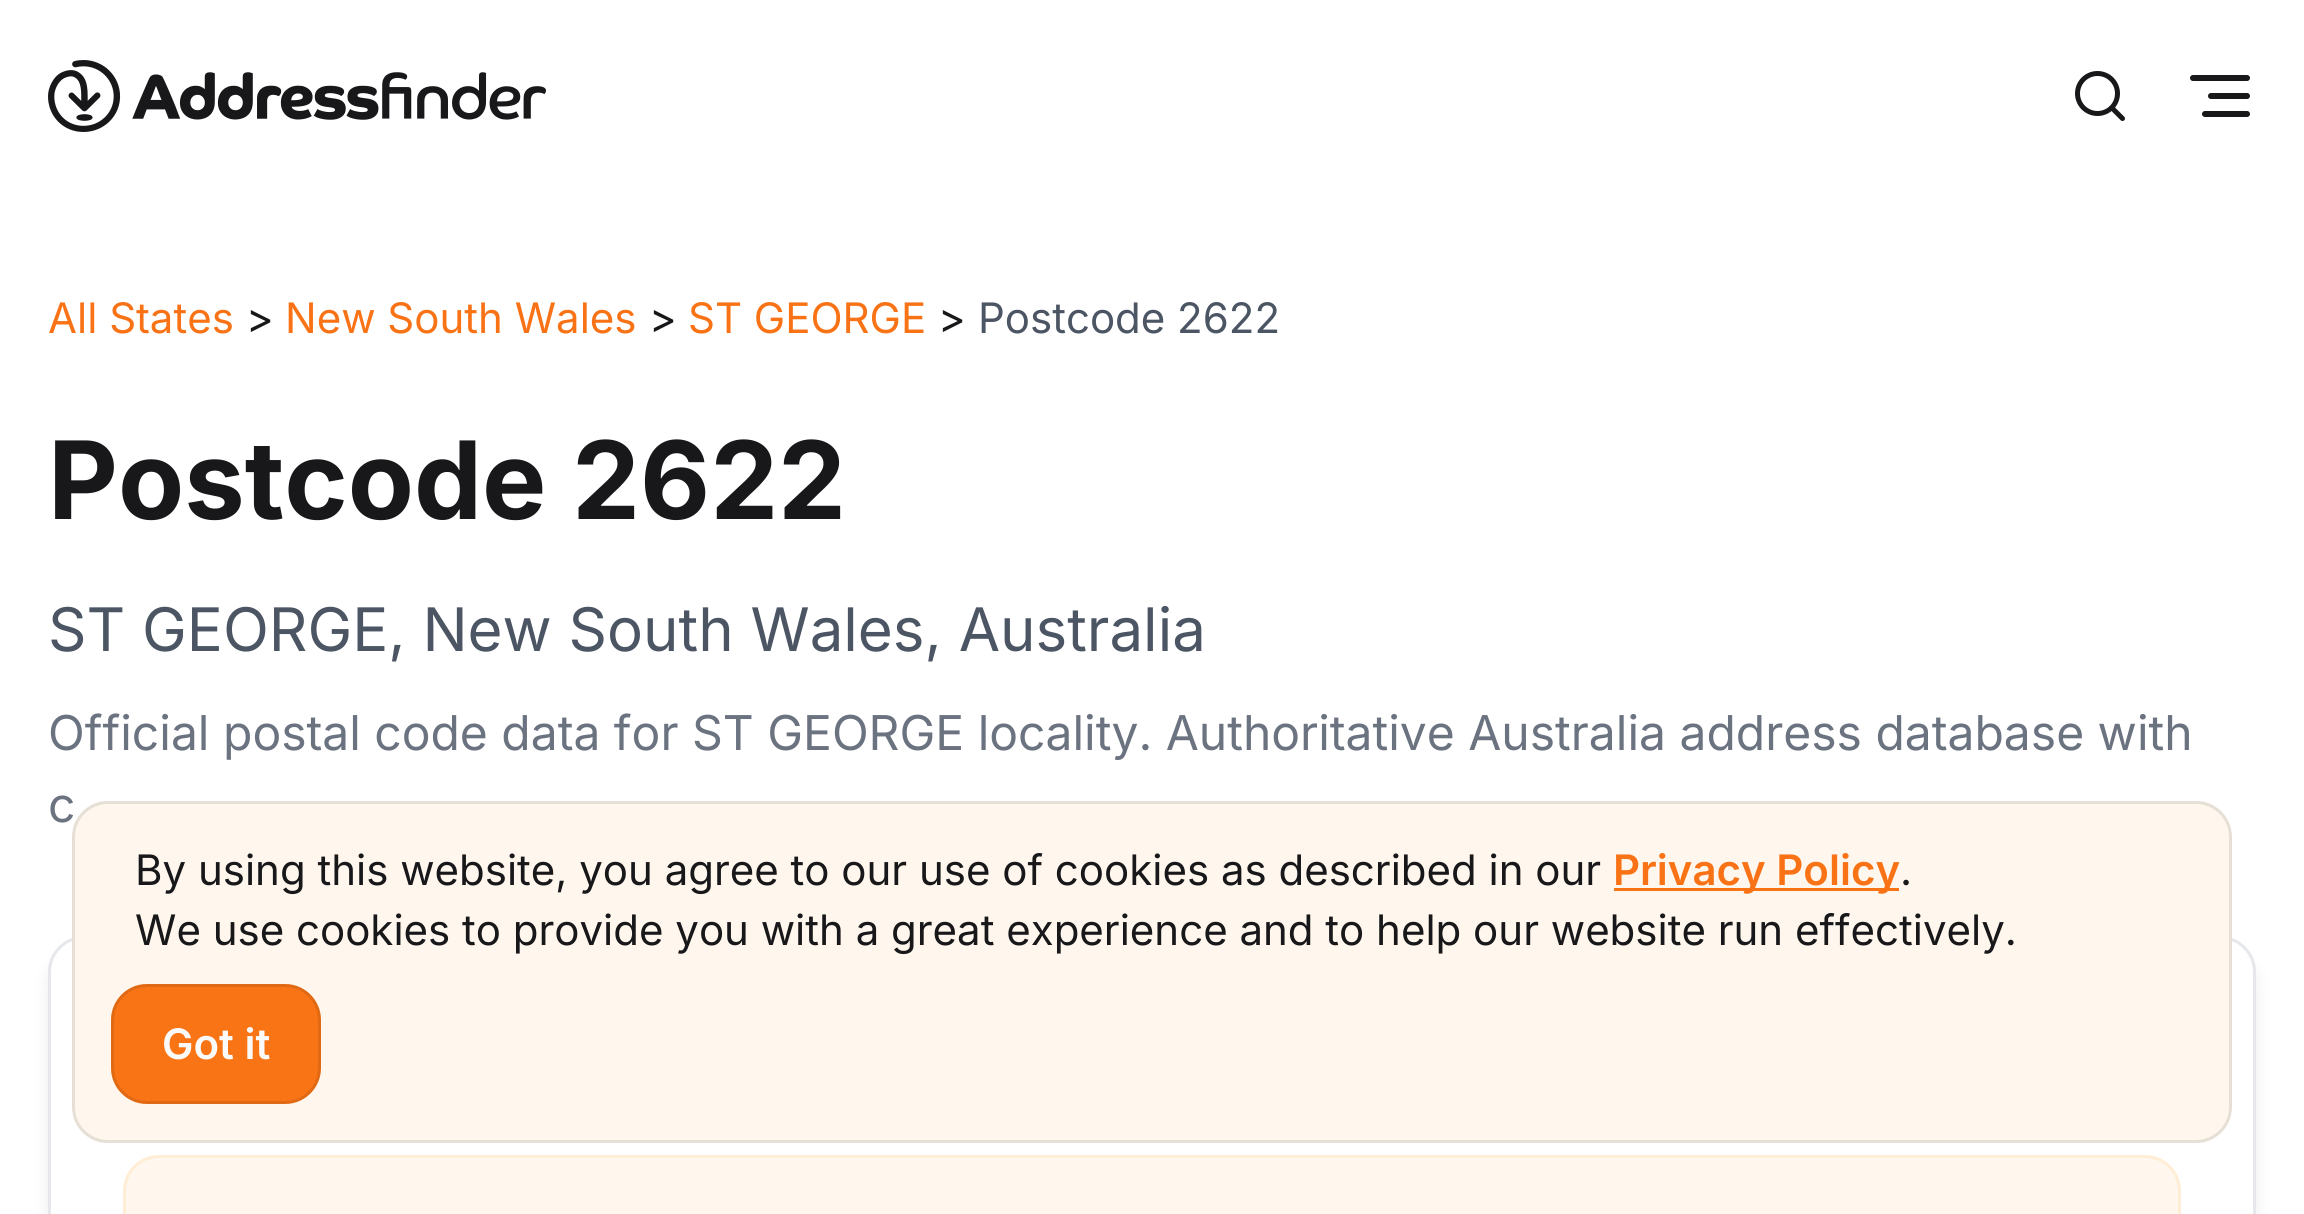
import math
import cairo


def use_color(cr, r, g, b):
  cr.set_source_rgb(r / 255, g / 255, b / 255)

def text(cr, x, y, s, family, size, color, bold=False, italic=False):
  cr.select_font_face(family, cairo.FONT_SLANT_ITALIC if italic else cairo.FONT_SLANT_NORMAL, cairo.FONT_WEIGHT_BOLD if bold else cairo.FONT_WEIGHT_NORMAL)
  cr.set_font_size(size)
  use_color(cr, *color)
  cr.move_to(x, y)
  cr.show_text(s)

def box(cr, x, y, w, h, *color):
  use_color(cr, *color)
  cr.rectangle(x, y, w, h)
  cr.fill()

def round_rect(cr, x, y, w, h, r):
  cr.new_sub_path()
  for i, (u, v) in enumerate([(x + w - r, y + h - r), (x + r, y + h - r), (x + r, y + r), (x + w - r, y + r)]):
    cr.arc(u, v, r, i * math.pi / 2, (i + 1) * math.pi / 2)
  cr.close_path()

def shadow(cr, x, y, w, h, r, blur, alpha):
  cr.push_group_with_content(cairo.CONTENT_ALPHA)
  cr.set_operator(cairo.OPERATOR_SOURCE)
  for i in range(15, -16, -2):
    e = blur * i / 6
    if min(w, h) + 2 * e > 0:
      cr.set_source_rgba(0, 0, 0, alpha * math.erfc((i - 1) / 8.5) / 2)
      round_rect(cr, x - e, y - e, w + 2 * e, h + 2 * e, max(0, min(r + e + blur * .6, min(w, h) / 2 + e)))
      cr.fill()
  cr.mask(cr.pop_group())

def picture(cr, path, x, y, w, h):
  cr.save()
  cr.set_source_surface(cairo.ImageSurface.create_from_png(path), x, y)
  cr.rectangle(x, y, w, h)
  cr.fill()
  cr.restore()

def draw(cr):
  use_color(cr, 255, 255, 255)
  cr.paint()
  picture(cr, "img_01.png", 48, 60, 498, 72)
  cr.arc(2097.5, 93.5, 20, 0, 2 * math.pi)
  use_color(cr, 24, 24, 27)
  cr.set_line_width(5)
  cr.stroke()
  cr.new_path()
  cr.move_to(2122.5, 118.5)
  cr.line_to(2112, 108)
  cr.set_line_cap(cairo.LINE_CAP_ROUND)
  cr.set_line_join(cairo.LINE_JOIN_ROUND)
  cr.stroke()
  cr.new_path()
  cr.move_to(2247, 78)
  cr.line_to(2193, 78)
  cr.move_to(2247, 96)
  cr.line_to(2211, 96)
  cr.move_to(2247, 114)
  cr.line_to(2205, 114)
  cr.set_line_width(6)
  cr.stroke()
  use_color(cr, 0, 0, 0)
  shadow(cr, 51, 951, 2202, 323, 33, 9, 0.1)
  use_color(cr, 255, 255, 255)
  round_rect(cr, 49.5, 937.5, 2205, 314, 34.5)
  cr.fill_preserve()
  use_color(cr, 229, 231, 235)
  cr.set_line_width(3)
  cr.set_line_cap(cairo.LINE_CAP_BUTT)
  cr.set_line_join(cairo.LINE_JOIN_MITER)
  cr.stroke()
  use_color(cr, 255, 247, 237)
  round_rect(cr, 124.5, 1156.5, 2055, 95, 34.5)
  cr.fill_preserve()
  use_color(cr, 255, 237, 213)
  cr.stroke()
  text(cr, 48, 333, "All States", "Inter", 42, (249, 115, 22))
  text(cr, 246, 333, ">", "Inter", 42, (24, 24, 27))
  text(cr, 285, 333, "New South Wales", "Inter", 42, (249, 115, 22))
  text(cr, 649, 333, ">", "Inter", 42, (24, 24, 27))
  text(cr, 688, 333, "ST GEORGE", "Inter", 42, (249, 115, 22))
  text(cr, 938, 333, ">", "Inter", 42, (24, 24, 27))
  text(cr, 978, 333, "Postcode 2622", "Inter", 42, (75, 85, 99))
  text(cr, 48, 519, "Postcode 2622", "Inter", 108, (24, 24, 27), bold=True)
  text(cr, 48, 651, "ST GEORGE, New South Wales, Australia", "Inter", 60, (75, 85, 99))
  text(cr, 48, 750, "Official postal code data for ST GEORGE locality. Authoritative Australia address database with", "Inter", 48, (107, 114, 128))
  text(cr, 48, 822, "c", "Inter", 48, (107, 114, 128))
  use_color(cr, 255, 247, 237)
  round_rect(cr, 72, 801, 2160, 342, 36)
  cr.fill()
  round_rect(cr, 73.5, 802.5, 2157, 339, 34.5)
  cr.set_source_rgba(0, 0, 0, 0.1)
  cr.stroke()
  text(cr, 135, 885, "By using this website, you agree to our use of cookies as described in our", "Inter", 42, (24, 24, 27))
  box(cr, 1614, 888, 285, 3, 249, 116, 21)
  text(cr, 1613, 885, "Privacy Policy", "Inter SemiBold", 42, (249, 115, 22))
  text(cr, 1900, 885, ".", "Inter", 42, (24, 24, 27))
  text(cr, 135, 945, "We use cookies to provide you with a great experience and to help our website run effectively.", "Inter", 42, (24, 24, 27))
  use_color(cr, 249, 116, 21)
  round_rect(cr, 111, 984, 210, 120, 36)
  cr.fill()
  round_rect(cr, 112.5, 985.5, 207, 117, 34.5)
  cr.set_source_rgba(0, 0, 0, 0.1)
  cr.stroke()
  text(cr, 162, 1059, "Got it", "Inter SemiBold", 42, (250, 250, 250))


surface = cairo.ImageSurface(cairo.FORMAT_RGB24, 2304, 1214)
cr = cairo.Context(surface)
options = cairo.FontOptions()
options.set_hint_metrics(cairo.HINT_METRICS_OFF)
options.set_hint_style(cairo.HINT_STYLE_NONE)
cr.set_font_options(options)
cr.set_miter_limit(4)
draw(cr)
surface.write_to_png("out.png")
